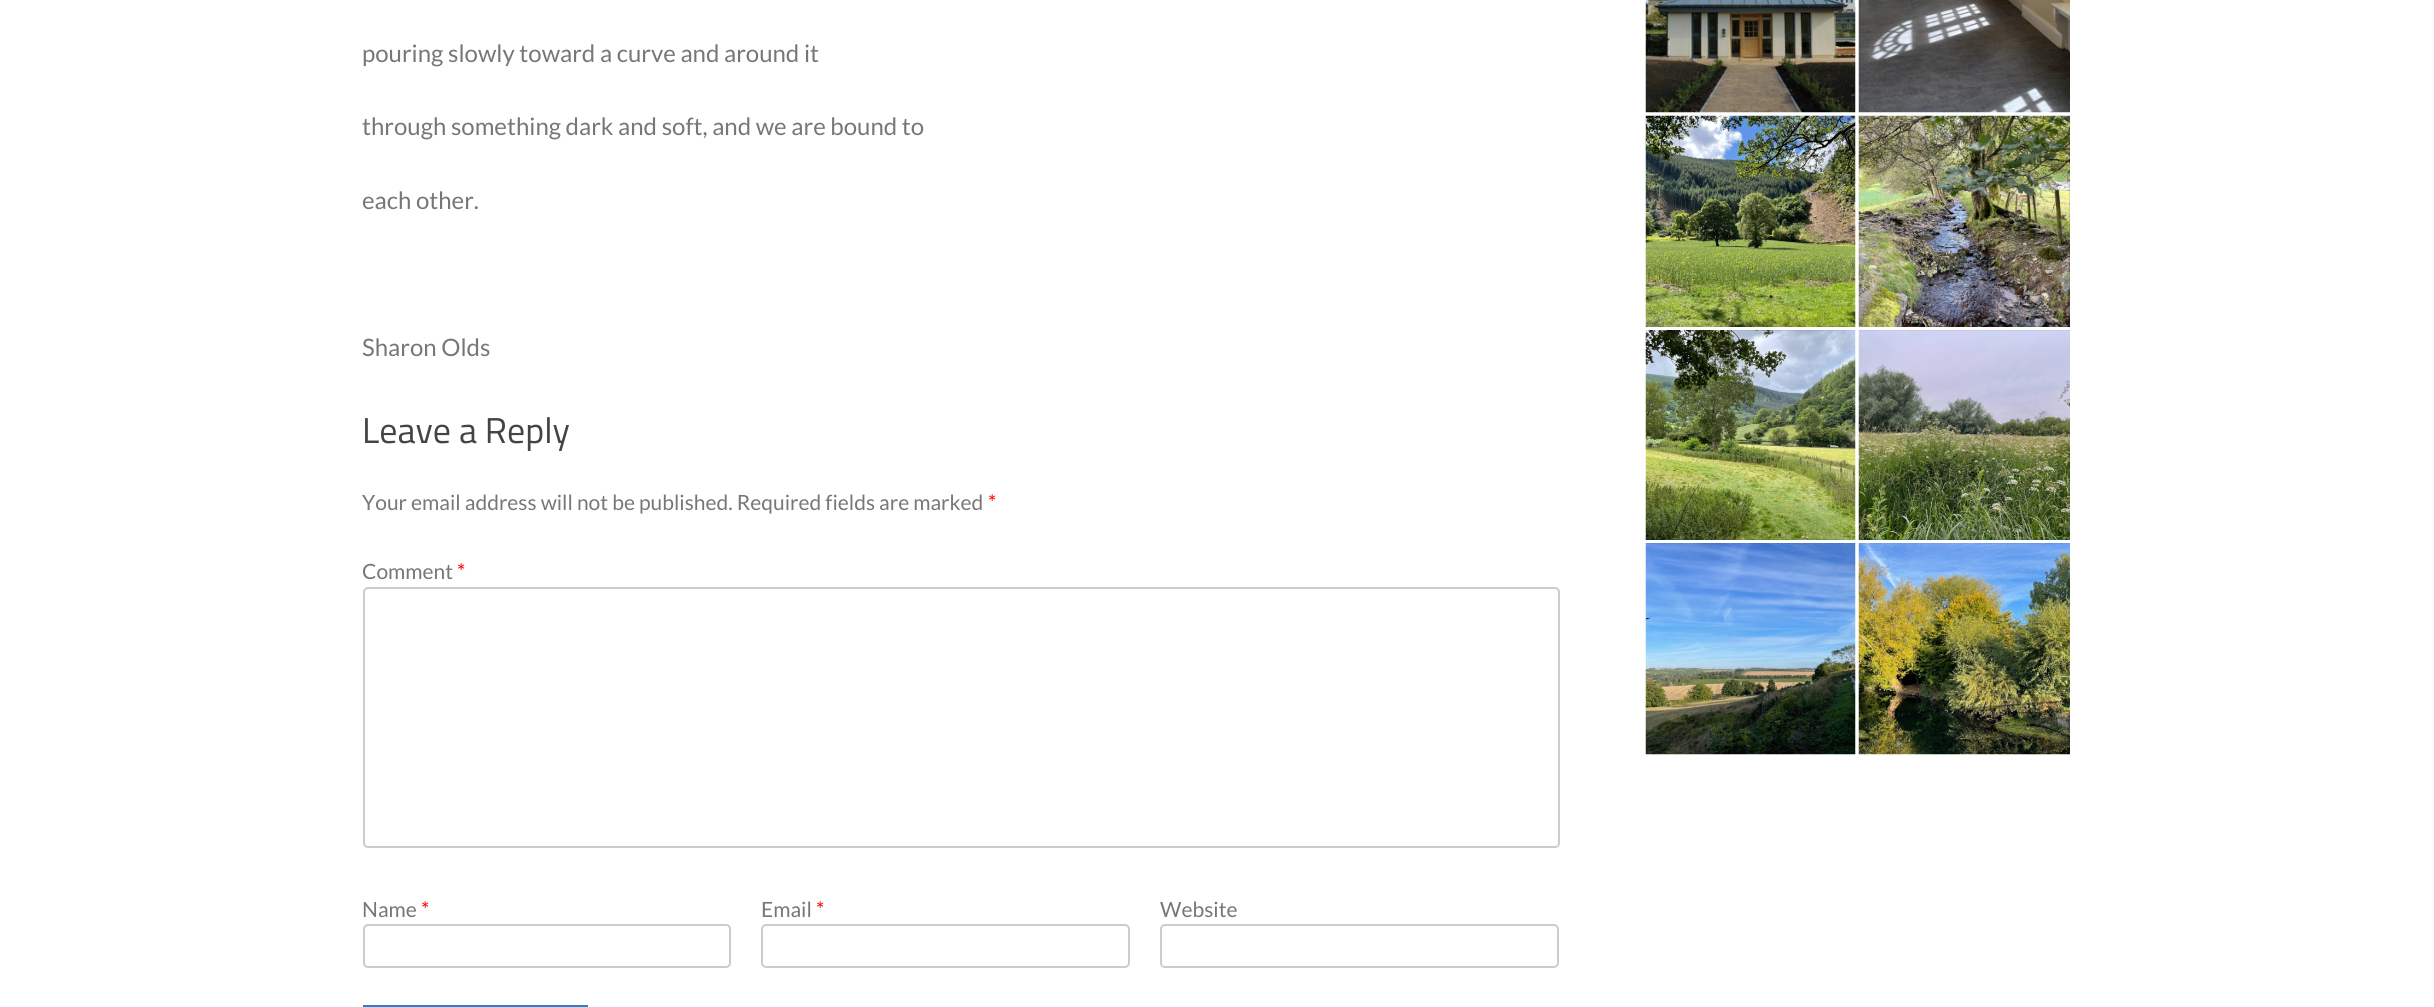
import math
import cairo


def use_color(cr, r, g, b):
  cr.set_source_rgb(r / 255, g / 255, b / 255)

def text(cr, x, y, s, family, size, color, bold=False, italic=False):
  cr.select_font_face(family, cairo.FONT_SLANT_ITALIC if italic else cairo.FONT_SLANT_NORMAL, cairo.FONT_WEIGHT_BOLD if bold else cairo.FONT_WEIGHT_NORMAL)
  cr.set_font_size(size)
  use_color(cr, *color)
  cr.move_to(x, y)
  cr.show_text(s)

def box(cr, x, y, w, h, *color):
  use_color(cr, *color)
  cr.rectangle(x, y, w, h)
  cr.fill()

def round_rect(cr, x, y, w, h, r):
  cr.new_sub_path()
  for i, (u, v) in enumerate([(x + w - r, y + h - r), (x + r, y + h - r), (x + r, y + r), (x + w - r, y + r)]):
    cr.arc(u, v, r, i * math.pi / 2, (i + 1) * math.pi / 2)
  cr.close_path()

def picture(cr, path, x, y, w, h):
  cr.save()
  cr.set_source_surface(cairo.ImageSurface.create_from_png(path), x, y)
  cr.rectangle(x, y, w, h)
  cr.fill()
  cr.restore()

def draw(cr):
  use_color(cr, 255, 255, 255)
  cr.paint()
  round_rect(cr, 364, 588, 1195, 259, 4)
  use_color(cr, 204, 204, 204)
  cr.stroke()
  round_rect(cr, 364, 925, 366, 42, 4)
  cr.stroke()
  round_rect(cr, 762, 925, 367, 42, 4)
  cr.stroke()
  round_rect(cr, 1161, 925, 397, 42, 4)
  cr.stroke()
  box(cr, 363, 1005, 225, 2, 45, 127, 199)
  picture(cr, "img_01.png", 1645, 0, 211, 113)
  picture(cr, "img_02.png", 1858, 0, 212, 113)
  picture(cr, "img_03.png", 1645, 115, 211, 212)
  picture(cr, "img_04.png", 1858, 115, 212, 212)
  picture(cr, "img_05.png", 1645, 330, 211, 210)
  picture(cr, "img_06.png", 1858, 330, 212, 210)
  picture(cr, "img_07.png", 1645, 543, 211, 212)
  picture(cr, "img_08.png", 1858, 543, 212, 212)
  text(cr, 362, 62, "pouring slowly toward a curve and around it", "Lato", 24, (119, 119, 119))
  text(cr, 362, 135, "through something dark and soft, and we are bound to", "Lato", 24, (119, 119, 119))
  text(cr, 362, 209, "each other.", "Lato", 24, (119, 119, 119))
  text(cr, 362, 356, "Sharon Olds", "Lato", 24, (119, 119, 119))
  text(cr, 362, 443, "Leave a Reply", "Titillium Web", 36, (68, 68, 68))
  text(cr, 362, 510, "Your email address will not be published. Required fields are marked", "Lato", 21, (119, 119, 119))
  text(cr, 988, 510, "*", "Lato", 21, (255, 0, 0))
  text(cr, 362, 579, "Comment", "Lato", 21, (119, 119, 119))
  text(cr, 457, 579, "*", "Lato", 21, (255, 0, 0))
  text(cr, 362, 917, "Name", "Lato", 21, (119, 119, 119))
  text(cr, 421, 917, "*", "Lato", 21, (255, 0, 0))
  text(cr, 761, 917, "Email", "Lato", 21, (119, 119, 119))
  text(cr, 816, 917, "*", "Lato", 21, (255, 0, 0))
  text(cr, 1160, 917, "Website", "Lato", 21, (119, 119, 119))


surface = cairo.ImageSurface(cairo.FORMAT_RGB24, 2434, 1007)
cr = cairo.Context(surface)
options = cairo.FontOptions()
options.set_hint_metrics(cairo.HINT_METRICS_OFF)
options.set_hint_style(cairo.HINT_STYLE_NONE)
cr.set_font_options(options)
cr.set_miter_limit(4)
draw(cr)
surface.write_to_png("out.png")
